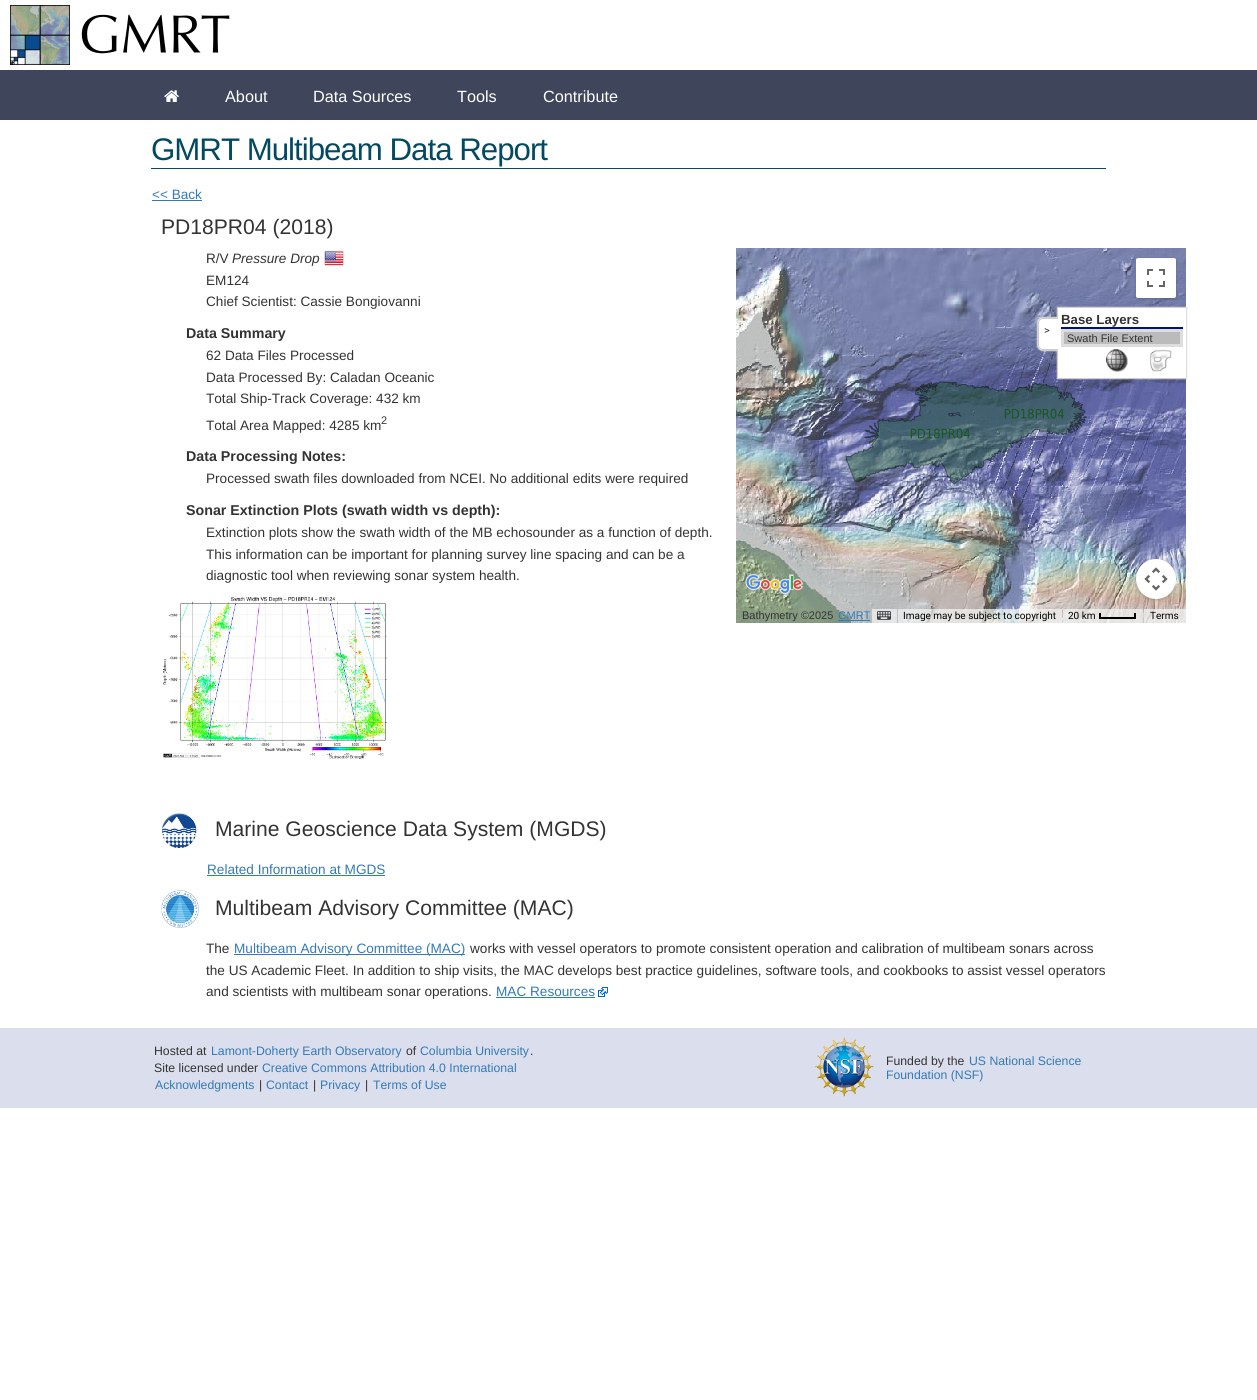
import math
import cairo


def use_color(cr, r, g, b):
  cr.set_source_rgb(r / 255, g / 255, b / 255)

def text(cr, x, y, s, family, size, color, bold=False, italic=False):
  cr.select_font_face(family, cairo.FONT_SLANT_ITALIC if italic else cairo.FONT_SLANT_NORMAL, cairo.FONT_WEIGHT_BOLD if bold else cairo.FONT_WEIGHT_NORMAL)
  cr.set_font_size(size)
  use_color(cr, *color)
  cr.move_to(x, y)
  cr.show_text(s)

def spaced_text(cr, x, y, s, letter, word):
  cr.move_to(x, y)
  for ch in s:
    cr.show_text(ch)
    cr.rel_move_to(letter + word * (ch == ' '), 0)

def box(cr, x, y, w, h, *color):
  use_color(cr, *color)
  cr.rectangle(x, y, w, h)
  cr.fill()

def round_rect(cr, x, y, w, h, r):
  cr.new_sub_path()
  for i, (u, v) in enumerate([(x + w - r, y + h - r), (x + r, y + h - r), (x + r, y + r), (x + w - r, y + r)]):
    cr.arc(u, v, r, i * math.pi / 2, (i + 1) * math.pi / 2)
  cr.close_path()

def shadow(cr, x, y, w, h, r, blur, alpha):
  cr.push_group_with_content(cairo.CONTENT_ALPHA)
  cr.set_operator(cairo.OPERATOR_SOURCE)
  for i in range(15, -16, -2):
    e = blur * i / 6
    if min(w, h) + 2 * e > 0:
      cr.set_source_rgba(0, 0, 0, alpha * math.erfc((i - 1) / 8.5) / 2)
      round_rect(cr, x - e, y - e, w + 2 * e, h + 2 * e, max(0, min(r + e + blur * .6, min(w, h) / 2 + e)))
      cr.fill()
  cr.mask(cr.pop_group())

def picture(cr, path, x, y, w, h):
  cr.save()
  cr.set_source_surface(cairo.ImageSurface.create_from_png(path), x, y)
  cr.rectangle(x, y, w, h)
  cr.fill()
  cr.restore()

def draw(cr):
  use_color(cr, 255, 255, 255)
  cr.paint()
  picture(cr, "img_01.png", 10, 5, 60, 60)
  picture(cr, "img_02.png", 81, 14, 149, 40)
  box(cr, 0, 70, 1257, 50, 63, 70, 92)
  picture(cr, "img_03.png", 164, 90, 15, 12)
  box(cr, 151, 168, 955, 1, 2, 74, 97)
  box(cr, 152, 200, 50, 1, 51, 122, 183)
  picture(cr, "img_04.png", 324, 250, 20, 17)
  picture(cr, "img_05.png", 163, 597, 224, 162)
  picture(cr, "img_06.png", 736, 248, 10, 238)
  picture(cr, "img_07.png", 746, 248, 256, 238)
  picture(cr, "img_08.png", 1002, 248, 184, 238)
  picture(cr, "img_09.png", 736, 486, 10, 137)
  picture(cr, "img_10.png", 746, 486, 256, 137)
  picture(cr, "img_11.png", 1002, 486, 184, 137)
  picture(cr, "img_12.png", 845, 381, 157, 103)
  picture(cr, "img_13.png", 1002, 382, 85, 71)
  use_color(cr, 0, 0, 0)
  shadow(cr, 1137, 260, 38, 38, 1, 2, 0.3)
  use_color(cr, 255, 255, 255)
  round_rect(cr, 1136, 258, 40, 40, 2)
  cr.fill()
  picture(cr, "img_14.png", 1147, 269, 18, 18)
  use_color(cr, 219, 219, 219)
  shadow(cr, 1057, 307, 130, 72, 0, 0.5, 1)
  box(cr, 1058, 308, 128, 70, 255, 255, 255)
  box(cr, 1061, 327, 122, 2, 0, 17, 119)
  box(cr, 1061, 329, 122, 18, 221, 221, 221)
  box(cr, 1064, 332, 116, 12, 187, 187, 187)
  cr.save()
  cr.rectangle(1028, 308, 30, 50)
  cr.clip()
  use_color(cr, 219, 219, 219)
  shadow(cr, 1037, 317, 44, 34, 6, 0.5, 1)
  cr.restore()
  use_color(cr, 255, 255, 255)
  cr.new_path()
  cr.move_to(1043, 318)
  cr.line_to(1058, 318)
  cr.line_to(1058, 350)
  cr.line_to(1043, 350)
  cr.curve_to(1040, 350, 1038, 348, 1038, 345)
  cr.line_to(1038, 323)
  cr.curve_to(1038, 320, 1040, 318, 1043, 318)
  cr.close_path()
  cr.fill()
  picture(cr, "img_15.png", 1106, 349, 22, 23)
  picture(cr, "img_16.png", 1149, 349, 23, 23)
  picture(cr, "img_17.png", 745, 573, 59, 22)
  use_color(cr, 0, 0, 0)
  shadow(cr, 1137, 561, 38, 38, 19, 2, 0.3)
  use_color(cr, 255, 255, 255)
  cr.arc(1156, 579, 20, 0, 2 * math.pi)
  cr.fill()
  picture(cr, "img_18.png", 1144, 567, 24, 24)
  box(cr, 838, 620, 32, 1, 51, 122, 183)
  cr.set_source_rgba(0.961, 0.961, 0.961, 0.7)
  cr.rectangle(872, 609, 25, 14)
  cr.fill()
  picture(cr, "img_19.png", 877, 611, 14, 9)
  cr.rectangle(898, 609, 164, 14)
  cr.fill()
  cr.rectangle(1063, 609, 80, 14)
  cr.fill()
  box(cr, 1099, 617, 37, 2, 0, 0, 0)
  box(cr, 1099, 613, 2, 6, 0, 0, 0)
  box(cr, 1134, 613, 2, 6, 0, 0, 0)
  cr.set_source_rgba(0.961, 0.961, 0.961, 0.7)
  cr.rectangle(1144, 609, 42, 14)
  cr.fill()
  picture(cr, "img_20.png", 162, 813, 35, 35)
  box(cr, 207, 875, 178, 1, 51, 122, 183)
  picture(cr, "img_21.png", 161, 890, 38, 38)
  box(cr, 234, 954, 231, 1, 51, 122, 183)
  box(cr, 496, 997, 99, 1, 51, 122, 183)
  picture(cr, "img_22.png", 598, 987, 10, 10)
  box(cr, 0, 1028, 1257, 80, 219, 222, 236)
  picture(cr, "img_23.png", 814, 1036, 60, 61)
  text(cr, 225, 102, "About", "Liberation Sans", 16.25, (255, 255, 255))
  text(cr, 313, 102, "Data Sources", "Liberation Sans", 16.25, (255, 255, 255))
  text(cr, 457, 102, "Tools", "Liberation Sans", 16.25, (255, 255, 255))
  text(cr, 543, 102, "Contribute", "Liberation Sans", 16.25, (255, 255, 255))
  cr.set_font_size(31.25)
  use_color(cr, 2, 74, 97)
  spaced_text(cr, 151, 160, "GMRT Multibeam Data Report", -1, 0)
  text(cr, 152, 199, "<< Back", "Liberation Sans", 13.6, (51, 122, 183))
  text(cr, 161, 234, "PD18PR04 (2018)", "Liberation Sans", 21.1, (51, 51, 51))
  text(cr, 206, 263, "R/V", "Liberation Sans", 13.6, (51, 51, 51))
  text(cr, 232, 263, "Pressure Drop", "Liberation Sans", 13.6, (51, 51, 51), italic=True)
  text(cr, 206, 285, "EM124", "Liberation Sans", 13.6, (51, 51, 51))
  text(cr, 206, 306, "Chief Scientist: Cassie Bongiovanni", "Liberation Sans", 13.6, (51, 51, 51))
  text(cr, 186, 338, "Data Summary", "Liberation Sans", 14.25, (51, 51, 51), bold=True)
  text(cr, 206, 360, "62 Data Files Processed", "Liberation Sans", 13.6, (51, 51, 51))
  text(cr, 206, 382, "Data Processed By: Caladan Oceanic", "Liberation Sans", 13.6, (51, 51, 51))
  text(cr, 206, 403, "Total Ship-Track Coverage: 432 km", "Liberation Sans", 13.6, (51, 51, 51))
  text(cr, 206, 430, "Total Area Mapped: 4285 km", "Liberation Sans", 13.6, (51, 51, 51))
  text(cr, 381, 424, "2", "Liberation Sans", 11, (51, 51, 51))
  text(cr, 186, 461, "Data Processing Notes:", "Liberation Sans", 14.25, (51, 51, 51), bold=True)
  text(cr, 206, 483, "Processed swath files downloaded from NCEI. No additional edits were required", "Liberation Sans", 13.6, (51, 51, 51))
  text(cr, 186, 515, "Sonar Extinction Plots (swath width vs depth):", "Liberation Sans", 14.25, (51, 51, 51), bold=True)
  text(cr, 206, 537, "Extinction plots show the swath width of the MB echosounder as a function of depth.", "Liberation Sans", 13.6, (51, 51, 51))
  text(cr, 206, 559, "This information can be important for planning survey line spacing and can be a", "Liberation Sans", 13.6, (51, 51, 51))
  text(cr, 206, 580, "diagnostic tool when reviewing sonar system health.", "Liberation Sans", 13.6, (51, 51, 51))
  text(cr, 1061, 324, "Base Layers", "Liberation Sans", 13.25, (51, 51, 51), bold=True)
  text(cr, 1067, 342, "Swath File Extent", "Liberation Sans", 11, (51, 51, 51))
  cr.save()
  cr.rectangle(1028, 308, 30, 50)
  cr.clip()
  round_rect(cr, 1038.5, 318.5, 41, 31, 4.5)
  use_color(cr, 205, 205, 204)
  cr.set_line_width(1)
  cr.stroke()
  cr.restore()
  text(cr, 1044, 334, ">", "Roboto", 11, (51, 51, 51))
  text(cr, 742, 619, "Bathymetry ©2025", "Liberation Sans", 11, (51, 51, 51))
  text(cr, 838, 619, "GMRT", "Liberation Sans", 11, (51, 122, 183))
  text(cr, 903, 619, "Image may be subject to copyright", "Roboto", 10, (0, 0, 0))
  text(cr, 1068, 619, "20 km", "Roboto", 10, (0, 0, 0))
  text(cr, 1150, 619, "Terms", "Roboto", 10, (0, 0, 0))
  text(cr, 215, 836, "Marine Geoscience Data System (MGDS)", "Liberation Sans", 21.1, (51, 51, 51))
  text(cr, 207, 874, "Related Information at MGDS", "Liberation Sans", 13.6, (51, 122, 183))
  text(cr, 215, 915, "Multibeam Advisory Committee (MAC)", "Liberation Sans", 21.1, (51, 51, 51))
  text(cr, 206, 953, "The", "Liberation Sans", 13.6, (51, 51, 51))
  text(cr, 234, 953, "Multibeam Advisory Committee (MAC)", "Liberation Sans", 13.6, (51, 122, 183))
  text(cr, 470, 953, "works with vessel operators to promote consistent operation and calibration of multibeam sonars across", "Liberation Sans", 13.6, (51, 51, 51))
  text(cr, 206, 975, "the US Academic Fleet. In addition to ship visits, the MAC develops best practice guidelines, software tools, and cookbooks to assist vessel operators", "Liberation Sans", 13.6, (51, 51, 51))
  text(cr, 206, 996, "and scientists with multibeam sonar operations.", "Liberation Sans", 13.6, (51, 51, 51))
  text(cr, 496, 996, "MAC Resources", "Liberation Sans", 13.6, (51, 122, 183))
  text(cr, 154, 1055, "Hosted at", "Liberation Sans", 12.25, (51, 51, 51))
  text(cr, 211, 1055, "Lamont-Doherty Earth Observatory", "Liberation Sans", 12.25, (51, 122, 183))
  text(cr, 406, 1055, "of", "Liberation Sans", 12.25, (51, 51, 51))
  text(cr, 420, 1055, "Columbia University", "Liberation Sans", 12.25, (51, 122, 183))
  text(cr, 530, 1055, ".", "Liberation Sans", 12.25, (51, 51, 51))
  text(cr, 154, 1072, "Site licensed under", "Liberation Sans", 12.25, (51, 51, 51))
  text(cr, 262, 1072, "Creative Commons Attribution 4.0 International", "Liberation Sans", 12.25, (51, 122, 183))
  text(cr, 155, 1089, "Acknowledgments", "Liberation Sans", 12.25, (51, 122, 183))
  text(cr, 259, 1089, "|", "Liberation Sans", 12.25, (51, 51, 51))
  text(cr, 266, 1089, "Contact", "Liberation Sans", 12.25, (51, 122, 183))
  text(cr, 313, 1089, "|", "Liberation Sans", 12.25, (51, 51, 51))
  text(cr, 320, 1089, "Privacy", "Liberation Sans", 12.25, (51, 122, 183))
  text(cr, 365, 1089, "|", "Liberation Sans", 12.25, (51, 51, 51))
  text(cr, 373, 1089, "Terms of Use", "Liberation Sans", 12.25, (51, 122, 183))
  text(cr, 886, 1065, "Funded by the", "Liberation Sans", 12.25, (51, 51, 51))
  text(cr, 969, 1065, "US National Science", "Liberation Sans", 12.25, (51, 122, 183))
  text(cr, 886, 1079, "Foundation (NSF)", "Liberation Sans", 12.25, (51, 122, 183))


surface = cairo.ImageSurface(cairo.FORMAT_RGB24, 1257, 1400)
cr = cairo.Context(surface)
options = cairo.FontOptions()
options.set_hint_metrics(cairo.HINT_METRICS_OFF)
options.set_hint_style(cairo.HINT_STYLE_NONE)
cr.set_font_options(options)
cr.set_miter_limit(4)
draw(cr)
surface.write_to_png("out.png")
